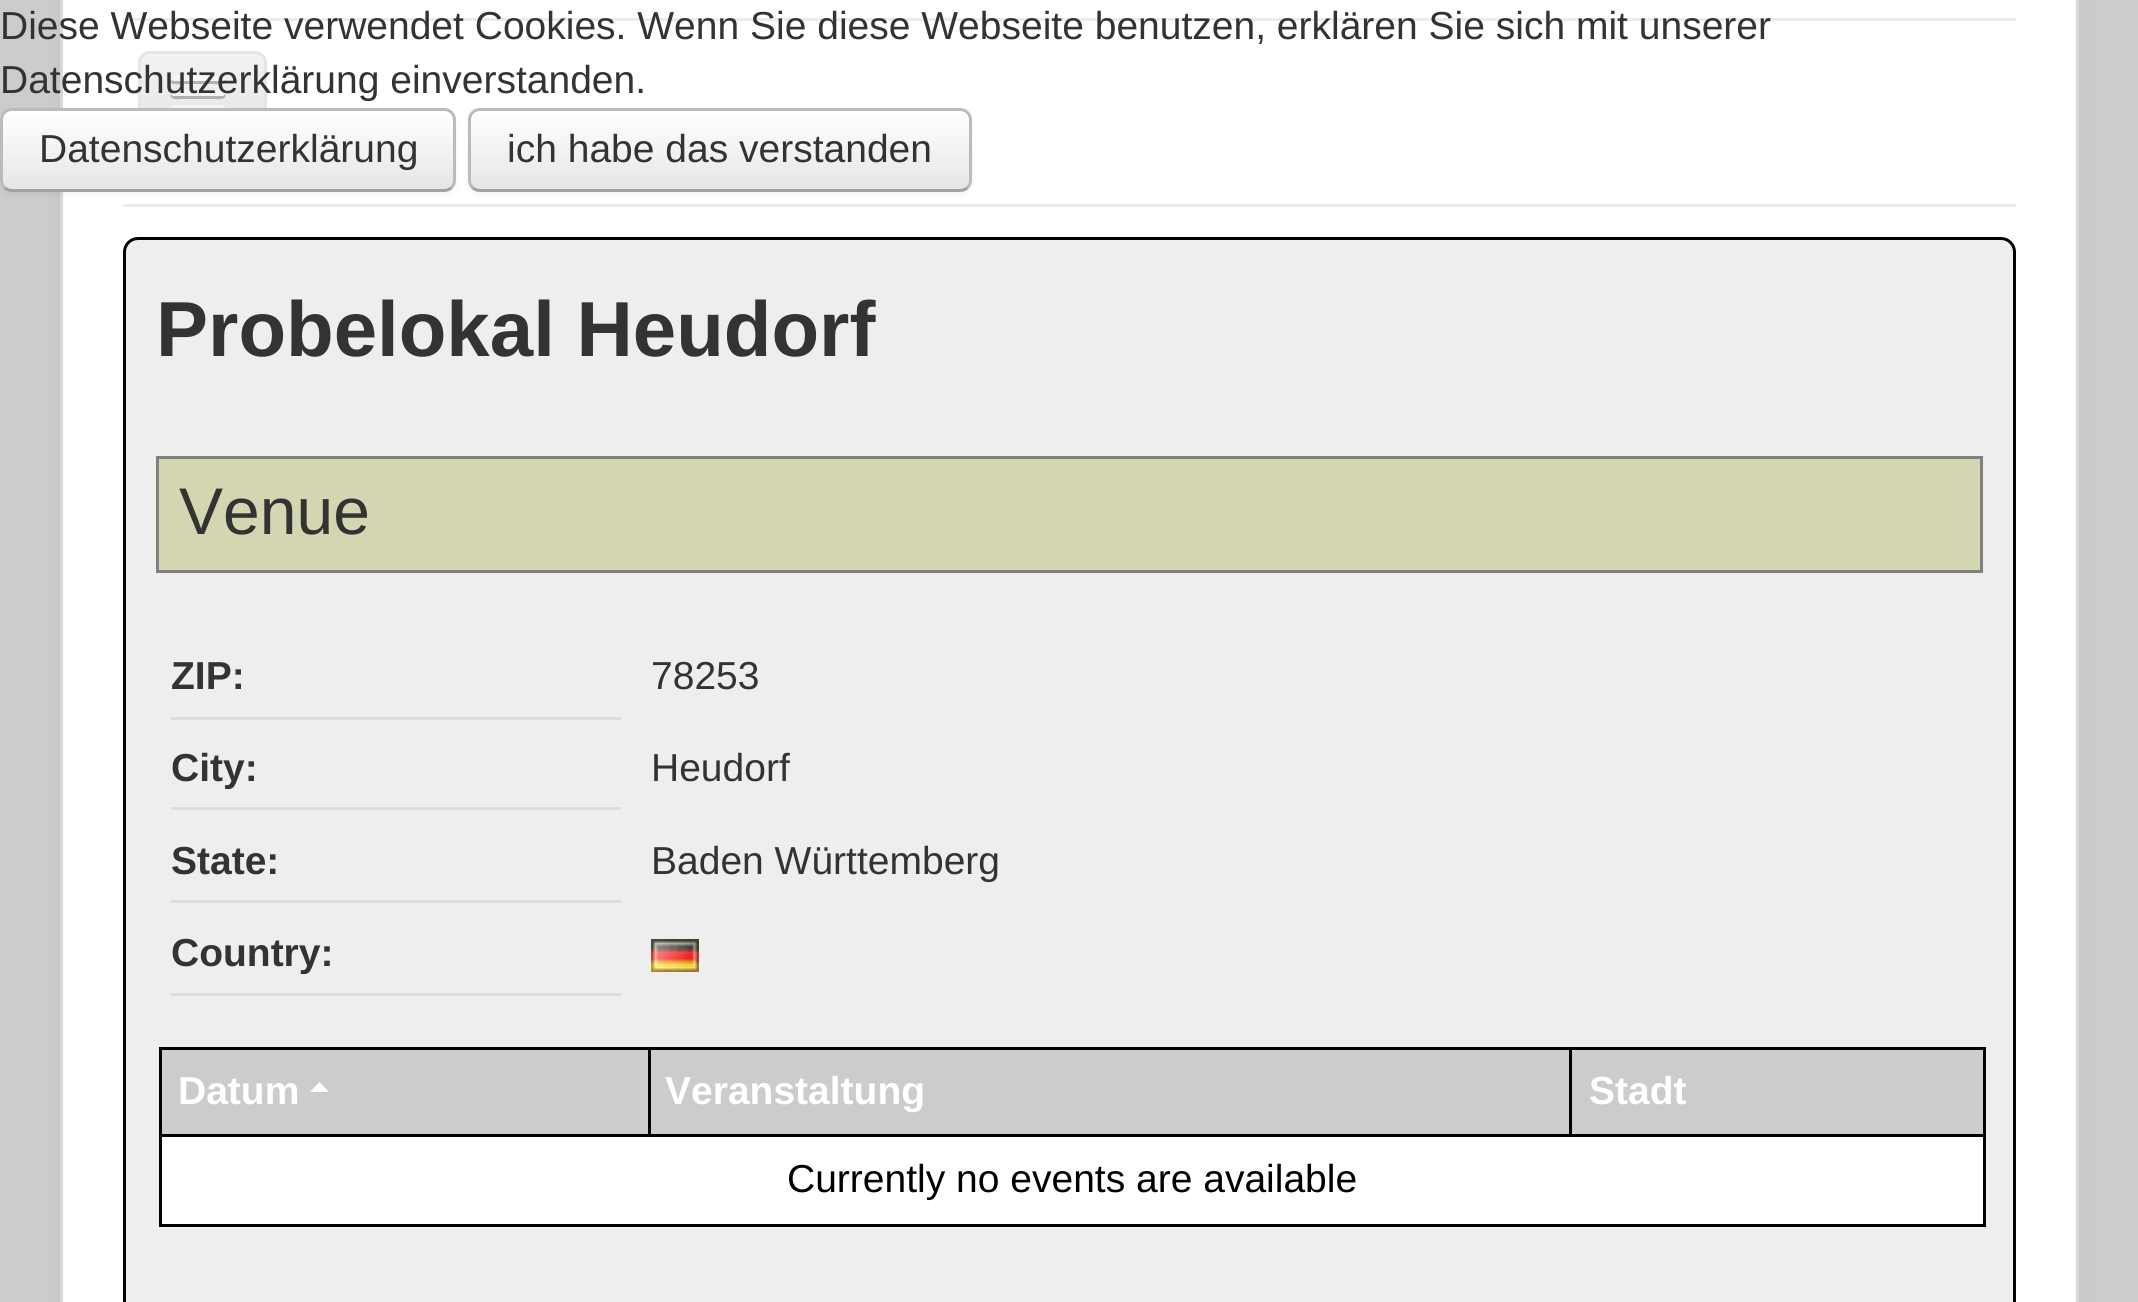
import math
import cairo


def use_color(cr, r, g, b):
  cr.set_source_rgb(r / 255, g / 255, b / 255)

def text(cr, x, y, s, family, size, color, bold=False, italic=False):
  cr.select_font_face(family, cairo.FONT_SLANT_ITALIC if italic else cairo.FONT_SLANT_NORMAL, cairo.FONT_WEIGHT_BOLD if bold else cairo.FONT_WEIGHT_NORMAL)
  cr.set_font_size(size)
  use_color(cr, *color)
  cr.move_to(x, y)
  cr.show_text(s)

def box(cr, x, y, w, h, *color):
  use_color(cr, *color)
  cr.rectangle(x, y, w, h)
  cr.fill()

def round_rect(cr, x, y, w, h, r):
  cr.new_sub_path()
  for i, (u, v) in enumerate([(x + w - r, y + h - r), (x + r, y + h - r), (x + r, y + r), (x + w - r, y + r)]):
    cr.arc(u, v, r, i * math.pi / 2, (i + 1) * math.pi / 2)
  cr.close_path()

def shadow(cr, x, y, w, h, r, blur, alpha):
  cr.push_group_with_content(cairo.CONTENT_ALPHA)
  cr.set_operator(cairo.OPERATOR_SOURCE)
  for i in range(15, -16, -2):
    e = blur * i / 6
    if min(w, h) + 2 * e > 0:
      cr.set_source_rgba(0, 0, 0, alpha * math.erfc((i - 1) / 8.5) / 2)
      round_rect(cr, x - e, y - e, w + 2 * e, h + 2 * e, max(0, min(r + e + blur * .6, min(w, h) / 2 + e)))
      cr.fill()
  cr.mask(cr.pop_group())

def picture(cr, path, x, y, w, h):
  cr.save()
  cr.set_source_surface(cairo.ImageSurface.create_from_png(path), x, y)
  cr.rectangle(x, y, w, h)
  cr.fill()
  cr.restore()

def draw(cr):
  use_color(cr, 204, 204, 204)
  cr.paint()
  use_color(cr, 0, 0, 0)
  shadow(cr, 60, -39, 2019, 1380, 12, 9, 0.05)
  use_color(cr, 255, 255, 255)
  cr.rectangle(61.5, -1.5, 2016, 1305)
  cr.fill_preserve()
  use_color(cr, 217, 217, 217)
  cr.set_line_width(3)
  cr.stroke()
  box(cr, 123, 204, 1893, 3, 236, 236, 236)
  cr.save()
  round_rect(cr, 138, 51, 129, 84, 12)
  cr.clip()
  gradient = cairo.LinearGradient(203, 54, 203, 132)
  gradient.add_color_stop_rgba(0, 0.949, 0.949, 0.949, 1)
  gradient.add_color_stop_rgba(1, 0.902, 0.902, 0.902, 1)
  cr.set_source(gradient)
  cr.rectangle(138, 54, 129, 54)
  cr.fill()
  cr.restore()
  use_color(cr, 243, 243, 243)
  cr.new_path()
  cr.move_to(150, 57)
  cr.line_to(255, 57)
  cr.curve_to(260, 57, 264, 61, 264, 66)
  cr.curve_to(264, 50, 251, 54, 238, 54)
  cr.line_to(168, 54)
  cr.curve_to(154, 54, 141, 50, 141, 66)
  cr.curve_to(141, 61, 145, 57, 150, 57)
  cr.close_path()
  cr.fill()
  cr.new_path()
  cr.move_to(142.5, 130.5)
  cr.curve_to(140.5, 128.5, 139.5, 126, 139.5, 123)
  cr.line_to(139.5, 63)
  cr.curve_to(139.5, 60, 140.5, 57.5, 142.5, 55.5)
  cr.curve_to(144.5, 53.5, 147, 52.5, 150, 52.5)
  cr.line_to(255, 52.5)
  cr.curve_to(258, 52.5, 260.5, 53.5, 262.5, 55.5)
  cr.curve_to(264.5, 57.5, 265.5, 60, 265.5, 63)
  cr.line_to(265.5, 123)
  cr.curve_to(265.5, 126, 264.5, 128.5, 262.5, 130.5)
  use_color(cr, 230, 230, 230)
  cr.stroke()
  use_color(cr, 245, 245, 245)
  round_rect(cr, 171, 105, 54, 6, 3)
  cr.fill()
  use_color(cr, 0, 0, 0)
  shadow(cr, 0, 111, 456, 84, 12, 3, 0.05)
  cr.save()
  round_rect(cr, 0, 108, 456, 84, 12)
  cr.clip()
  gradient = cairo.LinearGradient(228, 111, 228, 189)
  gradient.add_color_stop_rgba(0, 1, 1, 1, 1)
  gradient.add_color_stop_rgba(1, 0.902, 0.902, 0.902, 1)
  cr.set_source(gradient)
  cr.rectangle(0, 111, 456, 78)
  cr.fill()
  cr.restore()
  cr.new_path()
  cr.move_to(451.5, 187.5)
  cr.curve_to(449.5, 189.5, 447, 190.5, 444, 190.5)
  cr.line_to(12, 190.5)
  cr.curve_to(9, 190.5, 6.5, 189.5, 4.5, 187.5)
  use_color(cr, 162, 162, 162)
  cr.stroke()
  cr.new_path()
  cr.move_to(4.5, 187.5)
  cr.curve_to(2.5, 185.5, 1.5, 183, 1.5, 180)
  cr.line_to(1.5, 120)
  cr.curve_to(1.5, 117, 2.5, 114.5, 4.5, 112.5)
  cr.curve_to(6.5, 110.5, 9, 109.5, 12, 109.5)
  cr.line_to(444, 109.5)
  cr.curve_to(447, 109.5, 449.5, 110.5, 451.5, 112.5)
  cr.curve_to(453.5, 114.5, 454.5, 117, 454.5, 120)
  cr.line_to(454.5, 180)
  cr.curve_to(454.5, 183, 453.5, 185.5, 451.5, 187.5)
  use_color(cr, 187, 187, 187)
  cr.stroke()
  use_color(cr, 0, 0, 0)
  shadow(cr, 468, 111, 504, 84, 12, 3, 0.05)
  cr.save()
  round_rect(cr, 468, 108, 504, 84, 12)
  cr.clip()
  gradient = cairo.LinearGradient(720, 111, 720, 189)
  gradient.add_color_stop_rgba(0, 1, 1, 1, 1)
  gradient.add_color_stop_rgba(1, 0.902, 0.902, 0.902, 1)
  cr.set_source(gradient)
  cr.rectangle(468, 111, 504, 78)
  cr.fill()
  cr.restore()
  cr.new_path()
  cr.move_to(967.5, 187.5)
  cr.curve_to(965.5, 189.5, 963, 190.5, 960, 190.5)
  cr.line_to(480, 190.5)
  cr.curve_to(477, 190.5, 474.5, 189.5, 472.5, 187.5)
  use_color(cr, 162, 162, 162)
  cr.stroke()
  cr.new_path()
  cr.move_to(472.5, 187.5)
  cr.curve_to(470.5, 185.5, 469.5, 183, 469.5, 180)
  cr.line_to(469.5, 120)
  cr.curve_to(469.5, 117, 470.5, 114.5, 472.5, 112.5)
  cr.curve_to(474.5, 110.5, 477, 109.5, 480, 109.5)
  cr.line_to(960, 109.5)
  cr.curve_to(963, 109.5, 965.5, 110.5, 967.5, 112.5)
  cr.curve_to(969.5, 114.5, 970.5, 117, 970.5, 120)
  cr.line_to(970.5, 180)
  cr.curve_to(970.5, 183, 969.5, 185.5, 967.5, 187.5)
  use_color(cr, 187, 187, 187)
  cr.stroke()
  box(cr, 123, 18, 1893, 3, 236, 236, 236)
  use_color(cr, 178, 178, 178)
  cr.new_path()
  cr.move_to(171, 80)
  cr.curve_to(168, 86, 182, 84, 182, 84)
  cr.line_to(214, 84)
  cr.curve_to(214, 84, 228, 86, 225, 80)
  cr.curve_to(224, 80, 223, 81, 222, 81)
  cr.line_to(174, 81)
  cr.curve_to(173, 81, 172, 80, 171, 80)
  cr.close_path()
  cr.fill()
  use_color(cr, 245, 245, 245)
  round_rect(cr, 171, 75, 54, 6, 3)
  cr.fill()
  use_color(cr, 176, 176, 176)
  cr.new_path()
  cr.move_to(171, 94)
  cr.curve_to(168, 101, 182, 99, 182, 99)
  cr.line_to(214, 99)
  cr.curve_to(214, 99, 228, 101, 225, 94)
  cr.curve_to(224, 95, 223, 96, 222, 96)
  cr.line_to(174, 96)
  cr.curve_to(173, 96, 172, 95, 171, 94)
  cr.close_path()
  cr.fill()
  use_color(cr, 245, 245, 245)
  round_rect(cr, 171, 90, 54, 6, 3)
  cr.fill()
  use_color(cr, 238, 238, 238)
  round_rect(cr, 124.5, 238.5, 1890, 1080, 13.5)
  cr.fill_preserve()
  use_color(cr, 0, 0, 0)
  cr.stroke()
  use_color(cr, 212, 214, 178)
  cr.rectangle(157.5, 457.5, 1824, 114)
  cr.fill_preserve()
  use_color(cr, 128, 128, 128)
  cr.stroke()
  box(cr, 171, 717, 450, 3, 221, 221, 221)
  box(cr, 171, 807, 450, 3, 221, 221, 221)
  box(cr, 171, 900, 450, 3, 221, 221, 221)
  box(cr, 171, 993, 450, 3, 221, 221, 221)
  picture(cr, "img_01.png", 651, 939, 48, 33)
  box(cr, 162, 1050, 486, 84, 204, 204, 204)
  box(cr, 1569, 1047, 417, 3, 0, 0, 0)
  box(cr, 159, 1134, 1827, 3, 0, 0, 0)
  box(cr, 1569, 1047, 3, 90, 0, 0, 0)
  box(cr, 648, 1047, 924, 3, 0, 0, 0)
  box(cr, 648, 1047, 3, 90, 0, 0, 0)
  box(cr, 159, 1047, 492, 3, 0, 0, 0)
  box(cr, 1983, 1134, 3, 93, 0, 0, 0)
  box(cr, 159, 1224, 1827, 3, 0, 0, 0)
  box(cr, 159, 1134, 3, 93, 0, 0, 0)
  box(cr, 159, 1047, 3, 90, 0, 0, 0)
  use_color(cr, 255, 255, 255)
  cr.new_path()
  cr.move_to(329, 1092)
  cr.line_to(310, 1092)
  cr.line_to(319.5, 1082)
  cr.close_path()
  cr.fill()
  box(cr, 651, 1050, 918, 84, 204, 204, 204)
  box(cr, 1572, 1050, 411, 84, 204, 204, 204)
  box(cr, 1983, 1047, 3, 90, 0, 0, 0)
  box(cr, 162, 1137, 1821, 87, 255, 255, 255)
  text(cr, 0, 39, "Diese Webseite verwendet Cookies. Wenn Sie diese Webseite benutzen, erklären Sie sich mit unserer", "Liberation Sans", 39, (51, 51, 51))
  text(cr, 0, 93, "Datenschutzerklärung einverstanden.", "Liberation Sans", 39, (51, 51, 51))
  text(cr, 39, 162, "Datenschutzerklärung", "Liberation Sans", 39, (51, 51, 51))
  text(cr, 507, 162, "ich habe das verstanden", "Liberation Sans", 39, (51, 51, 51))
  text(cr, 156, 356, "Probelokal Heudorf", "Liberation Sans", 78, (51, 51, 51), bold=True)
  text(cr, 179, 534, "Venue", "Liberation Sans", 66, (51, 51, 51))
  text(cr, 171, 689, "ZIP:", "Liberation Sans", 39, (51, 51, 51), bold=True)
  text(cr, 651, 689, "78253", "Liberation Sans", 39, (51, 51, 51))
  text(cr, 171, 781, "City:", "Liberation Sans", 39, (51, 51, 51), bold=True)
  text(cr, 651, 781, "Heudorf", "Liberation Sans", 39, (51, 51, 51))
  text(cr, 171, 874, "State:", "Liberation Sans", 39, (51, 51, 51), bold=True)
  text(cr, 651, 874, "Baden Württemberg", "Liberation Sans", 39, (51, 51, 51))
  text(cr, 171, 966, "Country:", "Liberation Sans", 39, (51, 51, 51), bold=True)
  text(cr, 178, 1104, "Datum", "Liberation Sans", 39, (255, 255, 255), bold=True)
  text(cr, 665, 1104, "Veranstaltung", "Liberation Sans", 39, (255, 255, 255), bold=True)
  text(cr, 1589, 1104, "Stadt", "Liberation Sans", 39, (255, 255, 255), bold=True)
  text(cr, 787, 1192, "Currently no events are available", "Liberation Sans", 39, (0, 0, 0))


surface = cairo.ImageSurface(cairo.FORMAT_RGB24, 2138, 1302)
cr = cairo.Context(surface)
options = cairo.FontOptions()
options.set_hint_metrics(cairo.HINT_METRICS_OFF)
options.set_hint_style(cairo.HINT_STYLE_NONE)
cr.set_font_options(options)
cr.set_miter_limit(4)
draw(cr)
surface.write_to_png("out.png")
